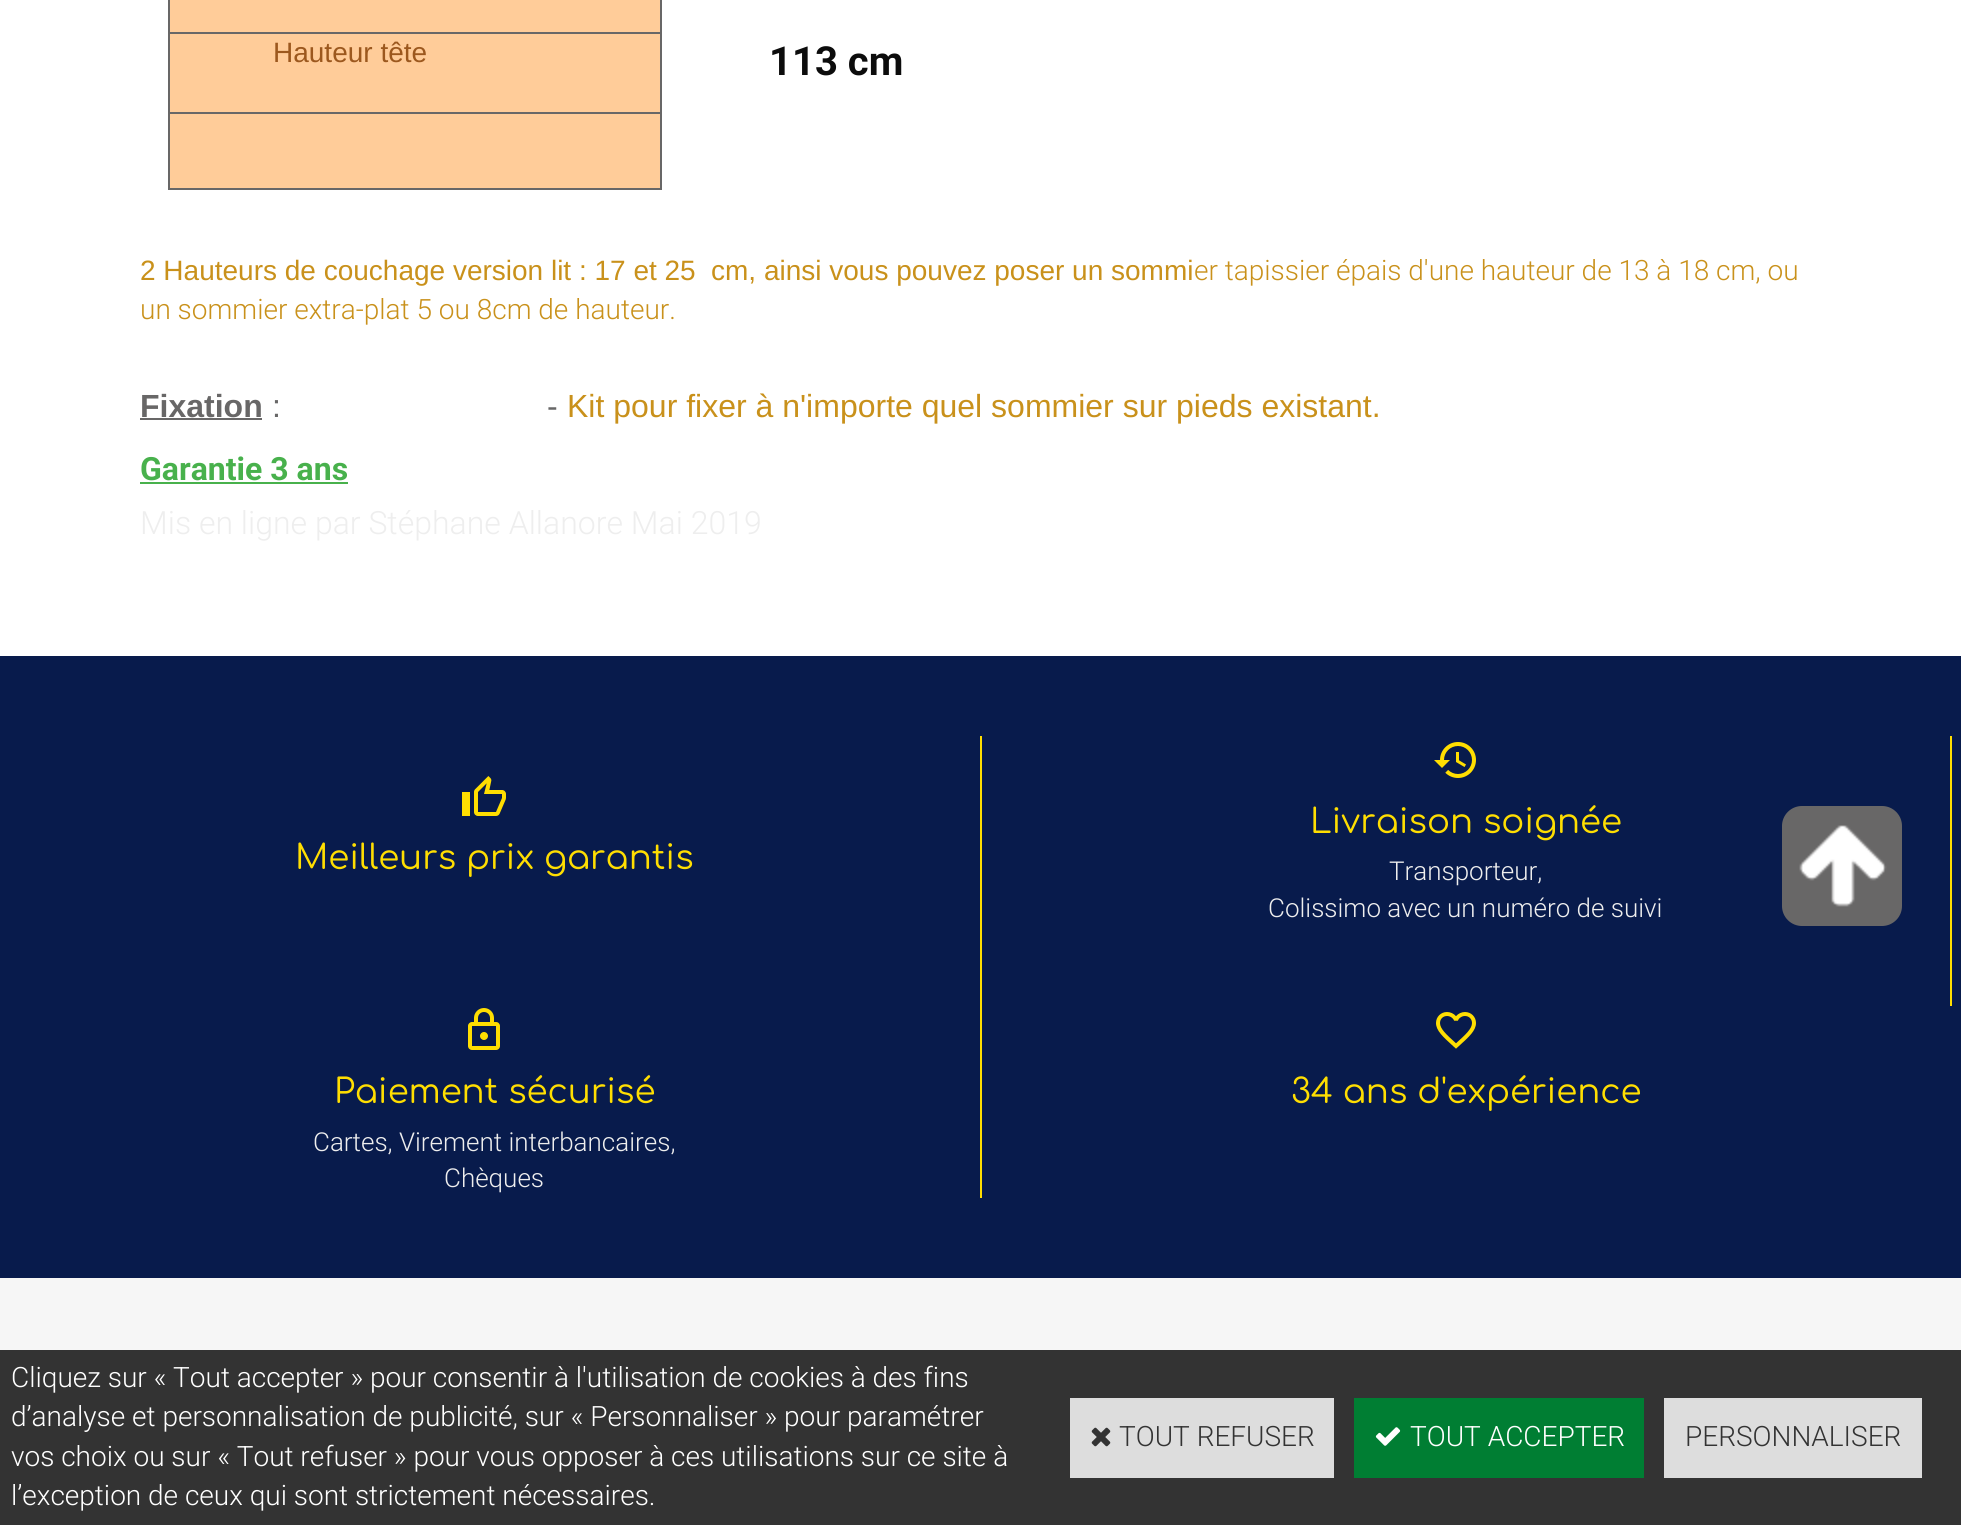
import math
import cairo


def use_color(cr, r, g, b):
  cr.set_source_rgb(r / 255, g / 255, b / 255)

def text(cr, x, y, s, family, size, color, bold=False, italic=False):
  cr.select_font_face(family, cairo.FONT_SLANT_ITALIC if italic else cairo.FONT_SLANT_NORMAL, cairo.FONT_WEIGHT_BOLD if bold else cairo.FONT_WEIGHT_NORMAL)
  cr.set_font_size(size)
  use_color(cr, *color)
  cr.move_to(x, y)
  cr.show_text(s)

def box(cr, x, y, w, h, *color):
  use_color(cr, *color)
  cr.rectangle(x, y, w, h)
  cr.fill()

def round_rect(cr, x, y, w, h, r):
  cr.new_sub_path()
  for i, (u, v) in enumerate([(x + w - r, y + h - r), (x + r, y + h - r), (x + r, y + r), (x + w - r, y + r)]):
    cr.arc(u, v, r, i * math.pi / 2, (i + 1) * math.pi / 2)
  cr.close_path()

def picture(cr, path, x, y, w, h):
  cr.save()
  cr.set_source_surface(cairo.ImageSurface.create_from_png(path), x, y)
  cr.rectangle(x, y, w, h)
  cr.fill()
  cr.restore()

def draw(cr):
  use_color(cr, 255, 255, 255)
  cr.paint()
  box(cr, 170, 0, 490, 32, 255, 204, 153)
  box(cr, 660, 0, 2, 190, 104, 103, 103)
  box(cr, 168, 188, 494, 2, 104, 103, 103)
  box(cr, 168, 112, 2, 78, 104, 103, 103)
  box(cr, 168, 112, 494, 2, 104, 103, 103)
  box(cr, 168, 32, 2, 82, 104, 103, 103)
  box(cr, 168, 32, 494, 2, 104, 103, 103)
  box(cr, 168, 0, 2, 34, 104, 103, 103)
  box(cr, 170, 114, 490, 74, 255, 204, 153)
  box(cr, 170, 34, 490, 78, 255, 204, 153)
  box(cr, 140, 418, 122, 2, 104, 103, 103)
  box(cr, 140, 482, 208, 2, 72, 177, 76)
  box(cr, 0, 1278, 1961, 72, 246, 246, 246)
  box(cr, 0, 656, 1961, 622, 8, 27, 76)
  box(cr, 980, 736, 2, 462, 255, 222, 1)
  picture(cr, "img_01.png", 462, 776, 44, 40)
  box(cr, 1950, 736, 2, 270, 255, 222, 1)
  picture(cr, "img_02.png", 1434, 742, 42, 36)
  picture(cr, "img_03.png", 468, 1008, 32, 42)
  picture(cr, "img_04.png", 1436, 1012, 40, 37)
  use_color(cr, 104, 103, 103)
  round_rect(cr, 1782, 806, 120, 120, 20)
  cr.fill()
  picture(cr, "img_05.png", 1799, 825, 88, 82)
  box(cr, 0, 1350, 1961, 175, 51, 51, 51)
  box(cr, 1070, 1398, 264, 80, 221, 221, 221)
  picture(cr, "img_06.png", 1091, 1427, 20, 20)
  box(cr, 1354, 1398, 290, 80, 0, 126, 51)
  picture(cr, "img_07.png", 1375, 1427, 26, 19)
  box(cr, 1664, 1398, 258, 80, 221, 221, 221)
  text(cr, 273, 62, "Hauteur tête", "Liberation Sans", 28, (156, 88, 30))
  text(cr, 769, 75, "113 cm", "Roboto", 40, (12, 12, 12), bold=True)
  text(cr, 140, 280, "2 Hauteurs de couchage version lit : 17 et 25", "Liberation Sans", 28, (201, 145, 27))
  text(cr, 711, 280, "cm, ainsi vous pouvez poser un sommi", "Liberation Sans", 28, (201, 145, 27))
  text(cr, 1194, 280, "er tapissier épais d'une hauteur de 13 à 18 cm, ou", "Roboto Light", 28, (201, 145, 27))
  text(cr, 140, 319, "un sommier extra-plat 5 ou 8cm de hauteur.", "Roboto Light", 28, (201, 145, 27))
  text(cr, 140, 417, "Fixation", "Liberation Sans", 32, (104, 103, 103), bold=True)
  text(cr, 272, 417, ":", "Liberation Sans", 32, (104, 103, 103))
  text(cr, 547, 417, "-", "Liberation Sans", 32, (104, 103, 103))
  text(cr, 567, 417, "Kit pour fixer à n'importe quel sommier sur pieds existant.", "Liberation Sans", 32, (201, 145, 27))
  text(cr, 140, 480, "Garantie 3 ans", "Roboto", 32, (72, 177, 76), bold=True)
  text(cr, 140, 534, "Mis en ligne par Stéphane Allanore Mai 2019", "Roboto Light", 32, (238, 238, 238))
  text(cr, 295, 869, "Meilleurs prix garantis", "Comfortaa", 34, (255, 222, 1))
  text(cr, 1310, 833, "Livraison soignée", "Comfortaa", 34, (255, 222, 1))
  text(cr, 1389, 880, "Transporteur,", "Roboto Light", 26, (238, 238, 238))
  text(cr, 1268, 917, "Colissimo avec un numéro de suivi", "Roboto Light", 26, (238, 238, 238))
  text(cr, 334, 1103, "Paiement sécurisé", "Comfortaa", 34, (255, 222, 1))
  text(cr, 313, 1151, "Cartes, Virement interbancaires,", "Roboto Light", 26, (238, 238, 238))
  text(cr, 444, 1187, "Chèques", "Roboto Light", 26, (238, 238, 238))
  text(cr, 1291, 1103, "34 ans d'expérience", "Comfortaa", 34, (255, 222, 1))
  text(cr, 11, 1387, "Cliquez sur « Tout accepter » pour consentir à l'utilisation de cookies à des fins", "Roboto Light", 28, (255, 255, 255))
  text(cr, 11, 1426, "d’analyse et personnalisation de publicité, sur « Personnaliser » pour paramétrer", "Roboto Light", 28, (255, 255, 255))
  text(cr, 11, 1466, "vos choix ou sur « Tout refuser » pour vous opposer à ces utilisations sur ce site à", "Roboto Light", 28, (255, 255, 255))
  text(cr, 11, 1505, "l’exception de ceux qui sont strictement nécessaires.", "Roboto Light", 28, (255, 255, 255))
  text(cr, 1119, 1446, "TOUT REFUSER", "Roboto Light", 28, (51, 51, 51))
  text(cr, 1410, 1446, "TOUT ACCEPTER", "Roboto Light", 28, (255, 255, 255))
  text(cr, 1685, 1446, "PERSONNALISER", "Roboto Light", 28, (51, 51, 51))


surface = cairo.ImageSurface(cairo.FORMAT_RGB24, 1961, 1525)
cr = cairo.Context(surface)
options = cairo.FontOptions()
options.set_hint_metrics(cairo.HINT_METRICS_OFF)
options.set_hint_style(cairo.HINT_STYLE_NONE)
cr.set_font_options(options)
cr.set_miter_limit(4)
draw(cr)
surface.write_to_png("out.png")
